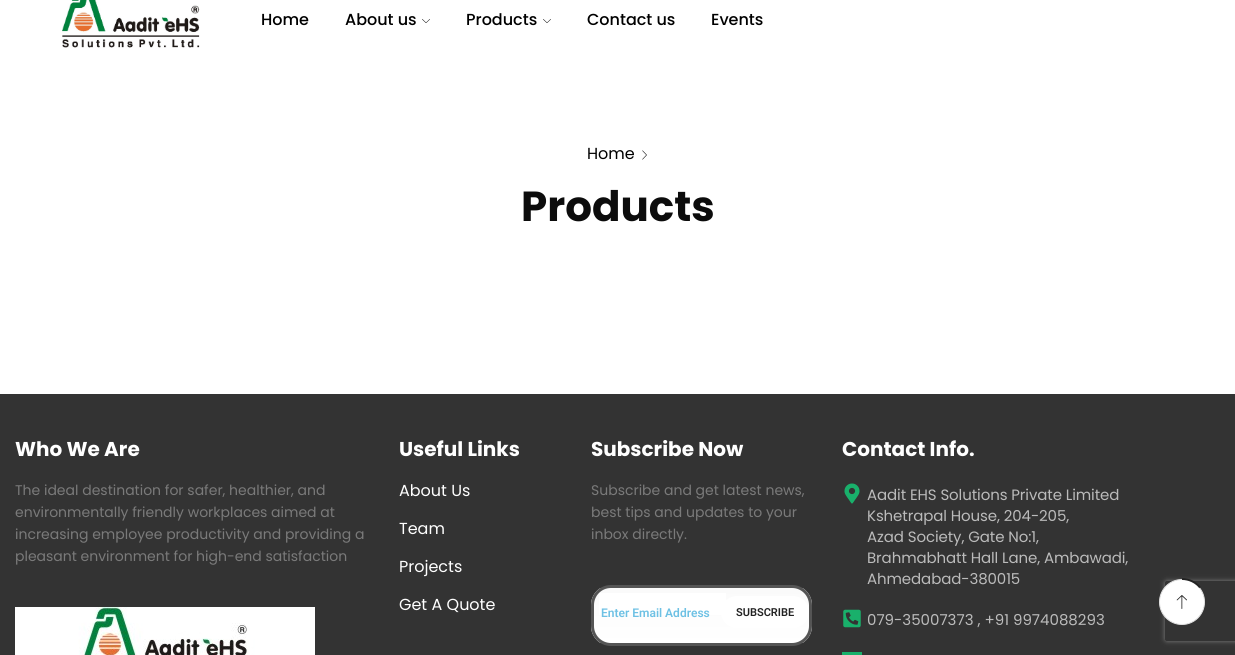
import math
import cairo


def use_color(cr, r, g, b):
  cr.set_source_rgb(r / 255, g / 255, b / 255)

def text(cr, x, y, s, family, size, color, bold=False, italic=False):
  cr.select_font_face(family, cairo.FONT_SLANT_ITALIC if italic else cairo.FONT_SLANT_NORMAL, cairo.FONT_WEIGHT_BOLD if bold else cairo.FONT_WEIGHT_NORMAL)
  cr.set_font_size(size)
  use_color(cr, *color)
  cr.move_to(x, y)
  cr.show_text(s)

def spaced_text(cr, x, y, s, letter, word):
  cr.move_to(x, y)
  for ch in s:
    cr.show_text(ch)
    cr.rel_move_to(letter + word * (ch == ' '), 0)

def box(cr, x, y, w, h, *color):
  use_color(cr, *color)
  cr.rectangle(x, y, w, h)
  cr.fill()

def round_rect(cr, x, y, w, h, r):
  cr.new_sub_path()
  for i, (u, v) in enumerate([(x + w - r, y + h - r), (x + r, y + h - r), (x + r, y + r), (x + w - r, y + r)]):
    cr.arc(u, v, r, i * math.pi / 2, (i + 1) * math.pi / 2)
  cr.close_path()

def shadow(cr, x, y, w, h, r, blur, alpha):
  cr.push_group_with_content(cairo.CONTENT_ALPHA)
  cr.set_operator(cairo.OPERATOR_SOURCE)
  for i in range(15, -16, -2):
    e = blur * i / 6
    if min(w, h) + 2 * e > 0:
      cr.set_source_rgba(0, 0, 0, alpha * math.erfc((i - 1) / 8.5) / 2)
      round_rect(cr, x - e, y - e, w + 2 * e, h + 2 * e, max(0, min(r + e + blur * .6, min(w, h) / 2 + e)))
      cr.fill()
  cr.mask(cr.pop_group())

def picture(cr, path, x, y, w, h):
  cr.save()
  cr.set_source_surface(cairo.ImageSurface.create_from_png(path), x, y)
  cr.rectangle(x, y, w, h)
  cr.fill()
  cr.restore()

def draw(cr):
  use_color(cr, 255, 255, 255)
  cr.paint()
  picture(cr, "img_01.png", 62, 0, 138, 48)
  picture(cr, "img_02.png", 422, 19, 8, 4)
  picture(cr, "img_02.png", 543, 19, 8, 4)
  picture(cr, "img_03.png", 642, 150, 5, 10)
  box(cr, 0, 394, 1235, 261, 51, 51, 51)
  picture(cr, "img_04.png", 15, 607, 300, 48)
  cr.save()
  round_rect(cr, 591, 585, 221, 61, 20)
  cr.clip()
  gradient = cairo.LinearGradient(702, 588, 702, 643)
  gradient.add_color_stop_rgba(0, 0.98, 0.98, 0.98, 1)
  gradient.add_color_stop_rgba(1, 1, 1, 1, 1)
  cr.set_source(gradient)
  cr.rectangle(591, 588, 221, 55)
  cr.fill()
  cr.restore()
  round_rect(cr, 592.5, 586.5, 218, 58, 18.5)
  use_color(cr, 85, 85, 85)
  cr.set_line_width(3)
  cr.stroke()
  use_color(cr, 255, 255, 255)
  round_rect(cr, 721, 596, 88, 32, 16)
  cr.fill()
  box(cr, 599, 593, 127, 22, 255, 255, 255)
  picture(cr, "img_05.png", 844, 483, 16, 21)
  picture(cr, "img_06.png", 843, 609, 18, 19)
  box(cr, 842, 652, 20, 3, 25, 176, 107)
  cr.save()
  cr.set_fill_rule(cairo.FILL_RULE_EVEN_ODD)
  cr.new_path()
  cr.move_to(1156, 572)
  cr.line_to(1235, 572)
  cr.line_to(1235, 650)
  cr.line_to(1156, 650)
  cr.close_path()
  cr.move_to(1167, 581)
  cr.line_to(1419, 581)
  cr.curve_to(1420, 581, 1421, 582, 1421, 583)
  cr.line_to(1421, 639)
  cr.curve_to(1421, 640, 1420, 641, 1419, 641)
  cr.line_to(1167, 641)
  cr.curve_to(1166, 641, 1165, 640, 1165, 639)
  cr.line_to(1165, 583)
  cr.curve_to(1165, 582, 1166, 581, 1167, 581)
  cr.close_path()
  cr.clip()
  use_color(cr, 128, 128, 128)
  shadow(cr, 1165, 581, 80, 60, 2, 2.5, 1)
  cr.restore()
  use_color(cr, 255, 255, 255)
  cr.arc(1182, 602, 22.5, 0, 2 * math.pi)
  cr.fill_preserve()
  use_color(cr, 225, 225, 225)
  cr.set_line_width(1)
  cr.stroke()
  cr.new_path()
  cr.move_to(1182, 579)
  cr.curve_to(1189.5, 579, 1196, 582.5, 1200, 587.5)
  use_color(cr, 34, 34, 34)
  cr.set_line_width(1.9)
  cr.stroke()
  picture(cr, "img_07.png", 1176, 595, 11, 14)
  text(cr, 261, 25, "Home", "Poppins Medium", 16, (0, 0, 0))
  text(cr, 345, 25, "About us", "Poppins Medium", 16, (0, 0, 0))
  text(cr, 466, 25, "Products", "Poppins Medium", 16, (0, 0, 0))
  text(cr, 587, 25, "Contact us", "Poppins Medium", 16, (0, 0, 0))
  text(cr, 711, 25, "Events", "Poppins Medium", 16, (0, 0, 0))
  text(cr, 587, 159, "Home", "Poppins", 16, (0, 0, 0))
  text(cr, 521, 221, "Products", "Poppins", 42, (12, 12, 12), bold=True)
  text(cr, 15, 456, "Who We Are", "Poppins", 20, (255, 255, 255), bold=True)
  text(cr, 15, 495, "The ideal destination for safer, healthier, and", "Poppins", 14, (122, 122, 122))
  text(cr, 15, 517, "environmentally friendly workplaces aimed at", "Poppins", 14, (122, 122, 122))
  text(cr, 15, 539, "increasing employee productivity and providing a", "Poppins", 14, (122, 122, 122))
  text(cr, 15, 561, "pleasant environment for high-end satisfaction", "Poppins", 14, (122, 122, 122))
  text(cr, 399, 456, "Useful Links", "Poppins", 20, (255, 255, 255), bold=True)
  text(cr, 399, 496, "About Us", "Poppins", 16, (255, 255, 255))
  text(cr, 399, 534, "Team", "Poppins", 16, (255, 255, 255))
  text(cr, 399, 572, "Projects", "Poppins", 16, (255, 255, 255))
  text(cr, 399, 610, "Get A Quote", "Poppins", 16, (255, 255, 255))
  text(cr, 591, 456, "Subscribe Now", "Poppins", 20, (255, 255, 255), bold=True)
  text(cr, 591, 495, "Subscribe and get latest news,", "Poppins", 14, (122, 122, 122))
  text(cr, 591, 517, "best tips and updates to your", "Poppins", 14, (122, 122, 122))
  text(cr, 591, 539, "inbox directly.", "Poppins", 14, (122, 122, 122))
  text(cr, 601, 617, "Enter Email Address", "Roboto SemiBold", 12, (110, 193, 228))
  text(cr, 736, 616, "SUBSCRIBE", "Roboto SemiBold", 11, (34, 34, 34))
  text(cr, 842, 456, "Contact Info.", "Poppins", 20, (255, 255, 255), bold=True)
  cr.select_font_face("Poppins")
  cr.set_font_size(15)
  use_color(cr, 187, 187, 187)
  spaced_text(cr, 867, 500, "Aadit EHS Solutions Private Limited", -0.1, 0)
  spaced_text(cr, 867, 521, "Kshetrapal House, 204-205,", -0.1, 0)
  spaced_text(cr, 867, 542, "Azad Society, Gate No:1,", -0.1, 0)
  spaced_text(cr, 867, 563, "Brahmabhatt Hall Lane, Ambawadi,", -0.1, 0)
  spaced_text(cr, 867, 584, "Ahmedabad-380015", -0.1, 0)
  text(cr, 867, 625, "079-35007373 , +91 9974088293", "Poppins", 15, (187, 187, 187))


surface = cairo.ImageSurface(cairo.FORMAT_RGB24, 1235, 655)
cr = cairo.Context(surface)
options = cairo.FontOptions()
options.set_hint_metrics(cairo.HINT_METRICS_OFF)
options.set_hint_style(cairo.HINT_STYLE_NONE)
cr.set_font_options(options)
cr.set_miter_limit(4)
draw(cr)
surface.write_to_png("out.png")
